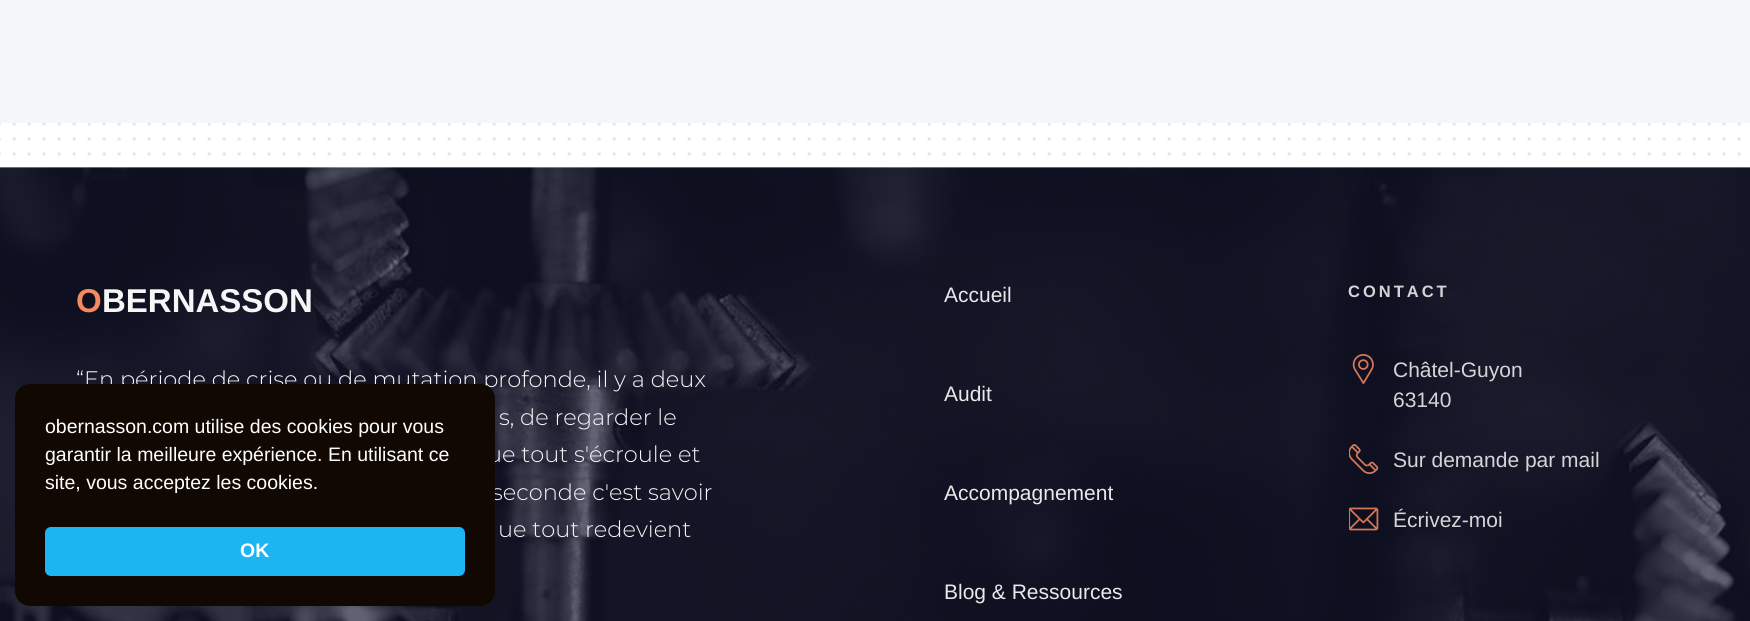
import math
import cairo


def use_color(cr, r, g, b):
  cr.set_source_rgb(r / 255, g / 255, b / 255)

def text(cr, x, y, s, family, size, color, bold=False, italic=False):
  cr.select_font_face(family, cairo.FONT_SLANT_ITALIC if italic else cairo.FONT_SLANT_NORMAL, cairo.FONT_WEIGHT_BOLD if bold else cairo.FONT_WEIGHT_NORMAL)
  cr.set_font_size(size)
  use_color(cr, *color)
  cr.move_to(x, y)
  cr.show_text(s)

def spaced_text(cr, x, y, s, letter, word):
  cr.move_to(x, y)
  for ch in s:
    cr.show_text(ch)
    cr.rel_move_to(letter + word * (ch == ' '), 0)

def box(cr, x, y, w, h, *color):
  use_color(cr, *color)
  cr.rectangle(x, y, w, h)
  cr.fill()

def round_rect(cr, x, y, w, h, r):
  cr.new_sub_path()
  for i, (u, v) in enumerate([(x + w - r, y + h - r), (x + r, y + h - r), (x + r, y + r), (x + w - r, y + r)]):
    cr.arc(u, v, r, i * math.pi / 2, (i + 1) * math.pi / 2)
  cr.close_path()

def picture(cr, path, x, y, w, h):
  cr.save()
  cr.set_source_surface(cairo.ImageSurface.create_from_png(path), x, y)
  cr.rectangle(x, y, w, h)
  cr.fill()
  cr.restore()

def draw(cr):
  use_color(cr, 255, 255, 255)
  cr.paint()
  box(cr, 0, 0, 1750, 123, 245, 246, 249)
  picture(cr, "img_01.png", 0, 123, 1741, 45)
  picture(cr, "img_02.png", 0, 167, 1750, 454)
  picture(cr, "img_03.png", 1352, 354, 22, 30)
  picture(cr, "img_04.png", 1349, 444, 30, 30)
  picture(cr, "img_05.png", 1349, 507, 30, 24)
  text(cr, 76, 312, "O", "Liberation Sans", 33, (245, 137, 97), bold=True)
  text(cr, 102, 312, "BERNASSON", "Liberation Sans", 33, (246, 246, 246), bold=True)
  text(cr, 76, 387, "“En période de crise ou de mutation profonde, il y a deux", "Montserrat Light", 22.5, (246, 246, 246))
  text(cr, 499, 425, "s, de regarder le", "Montserrat Light", 22.5, (246, 246, 246))
  text(cr, 487, 462, "ue tout s'écroule et", "Montserrat Light", 22.5, (246, 246, 246))
  text(cr, 492, 500, "seconde c'est savoir", "Montserrat Light", 22.5, (246, 246, 246))
  text(cr, 498, 537, "ue tout redevient", "Montserrat Light", 22.5, (246, 246, 246))
  text(cr, 944, 302, "Accueil", "Liberation Sans", 21, (233, 233, 235))
  text(cr, 944, 401, "Audit", "Liberation Sans", 21, (233, 233, 235))
  text(cr, 944, 500, "Accompagnement", "Liberation Sans", 21, (233, 233, 235))
  text(cr, 944, 599, "Blog & Ressources", "Liberation Sans", 21, (233, 233, 235))
  cr.select_font_face("Liberation Sans", cairo.FONT_SLANT_NORMAL, cairo.FONT_WEIGHT_BOLD)
  cr.set_font_size(16.5)
  use_color(cr, 213, 213, 216)
  spaced_text(cr, 1348, 297, "CONTACT", 3, 0)
  text(cr, 1393, 377, "Châtel-Guyon", "Liberation Sans", 21, (213, 213, 216))
  text(cr, 1393, 407, "63140", "Liberation Sans", 21, (213, 213, 216))
  text(cr, 1393, 467, "Sur demande par mail", "Liberation Sans", 21, (213, 213, 216))
  text(cr, 1393, 527, "Écrivez-moi", "Liberation Sans", 21, (213, 213, 216))
  use_color(cr, 17, 8, 2)
  round_rect(cr, 15, 384, 480, 222, 15)
  cr.fill()
  text(cr, 45, 433, "obernasson.com utilise des cookies pour vous", "Liberation Sans", 19.5, (255, 255, 255))
  text(cr, 45, 461, "garantir la meilleure expérience. En utilisant ce", "Liberation Sans", 19.5, (255, 255, 255))
  text(cr, 45, 489, "site, vous acceptez les cookies.", "Liberation Sans", 19.5, (255, 255, 255))
  use_color(cr, 29, 181, 241)
  round_rect(cr, 45, 527, 420, 49, 6)
  cr.fill()
  text(cr, 240, 557, "OK", "Liberation Sans", 19.5, (255, 255, 255), bold=True)


surface = cairo.ImageSurface(cairo.FORMAT_RGB24, 1750, 621)
cr = cairo.Context(surface)
options = cairo.FontOptions()
options.set_hint_metrics(cairo.HINT_METRICS_OFF)
options.set_hint_style(cairo.HINT_STYLE_NONE)
cr.set_font_options(options)
cr.set_miter_limit(4)
draw(cr)
surface.write_to_png("out.png")
